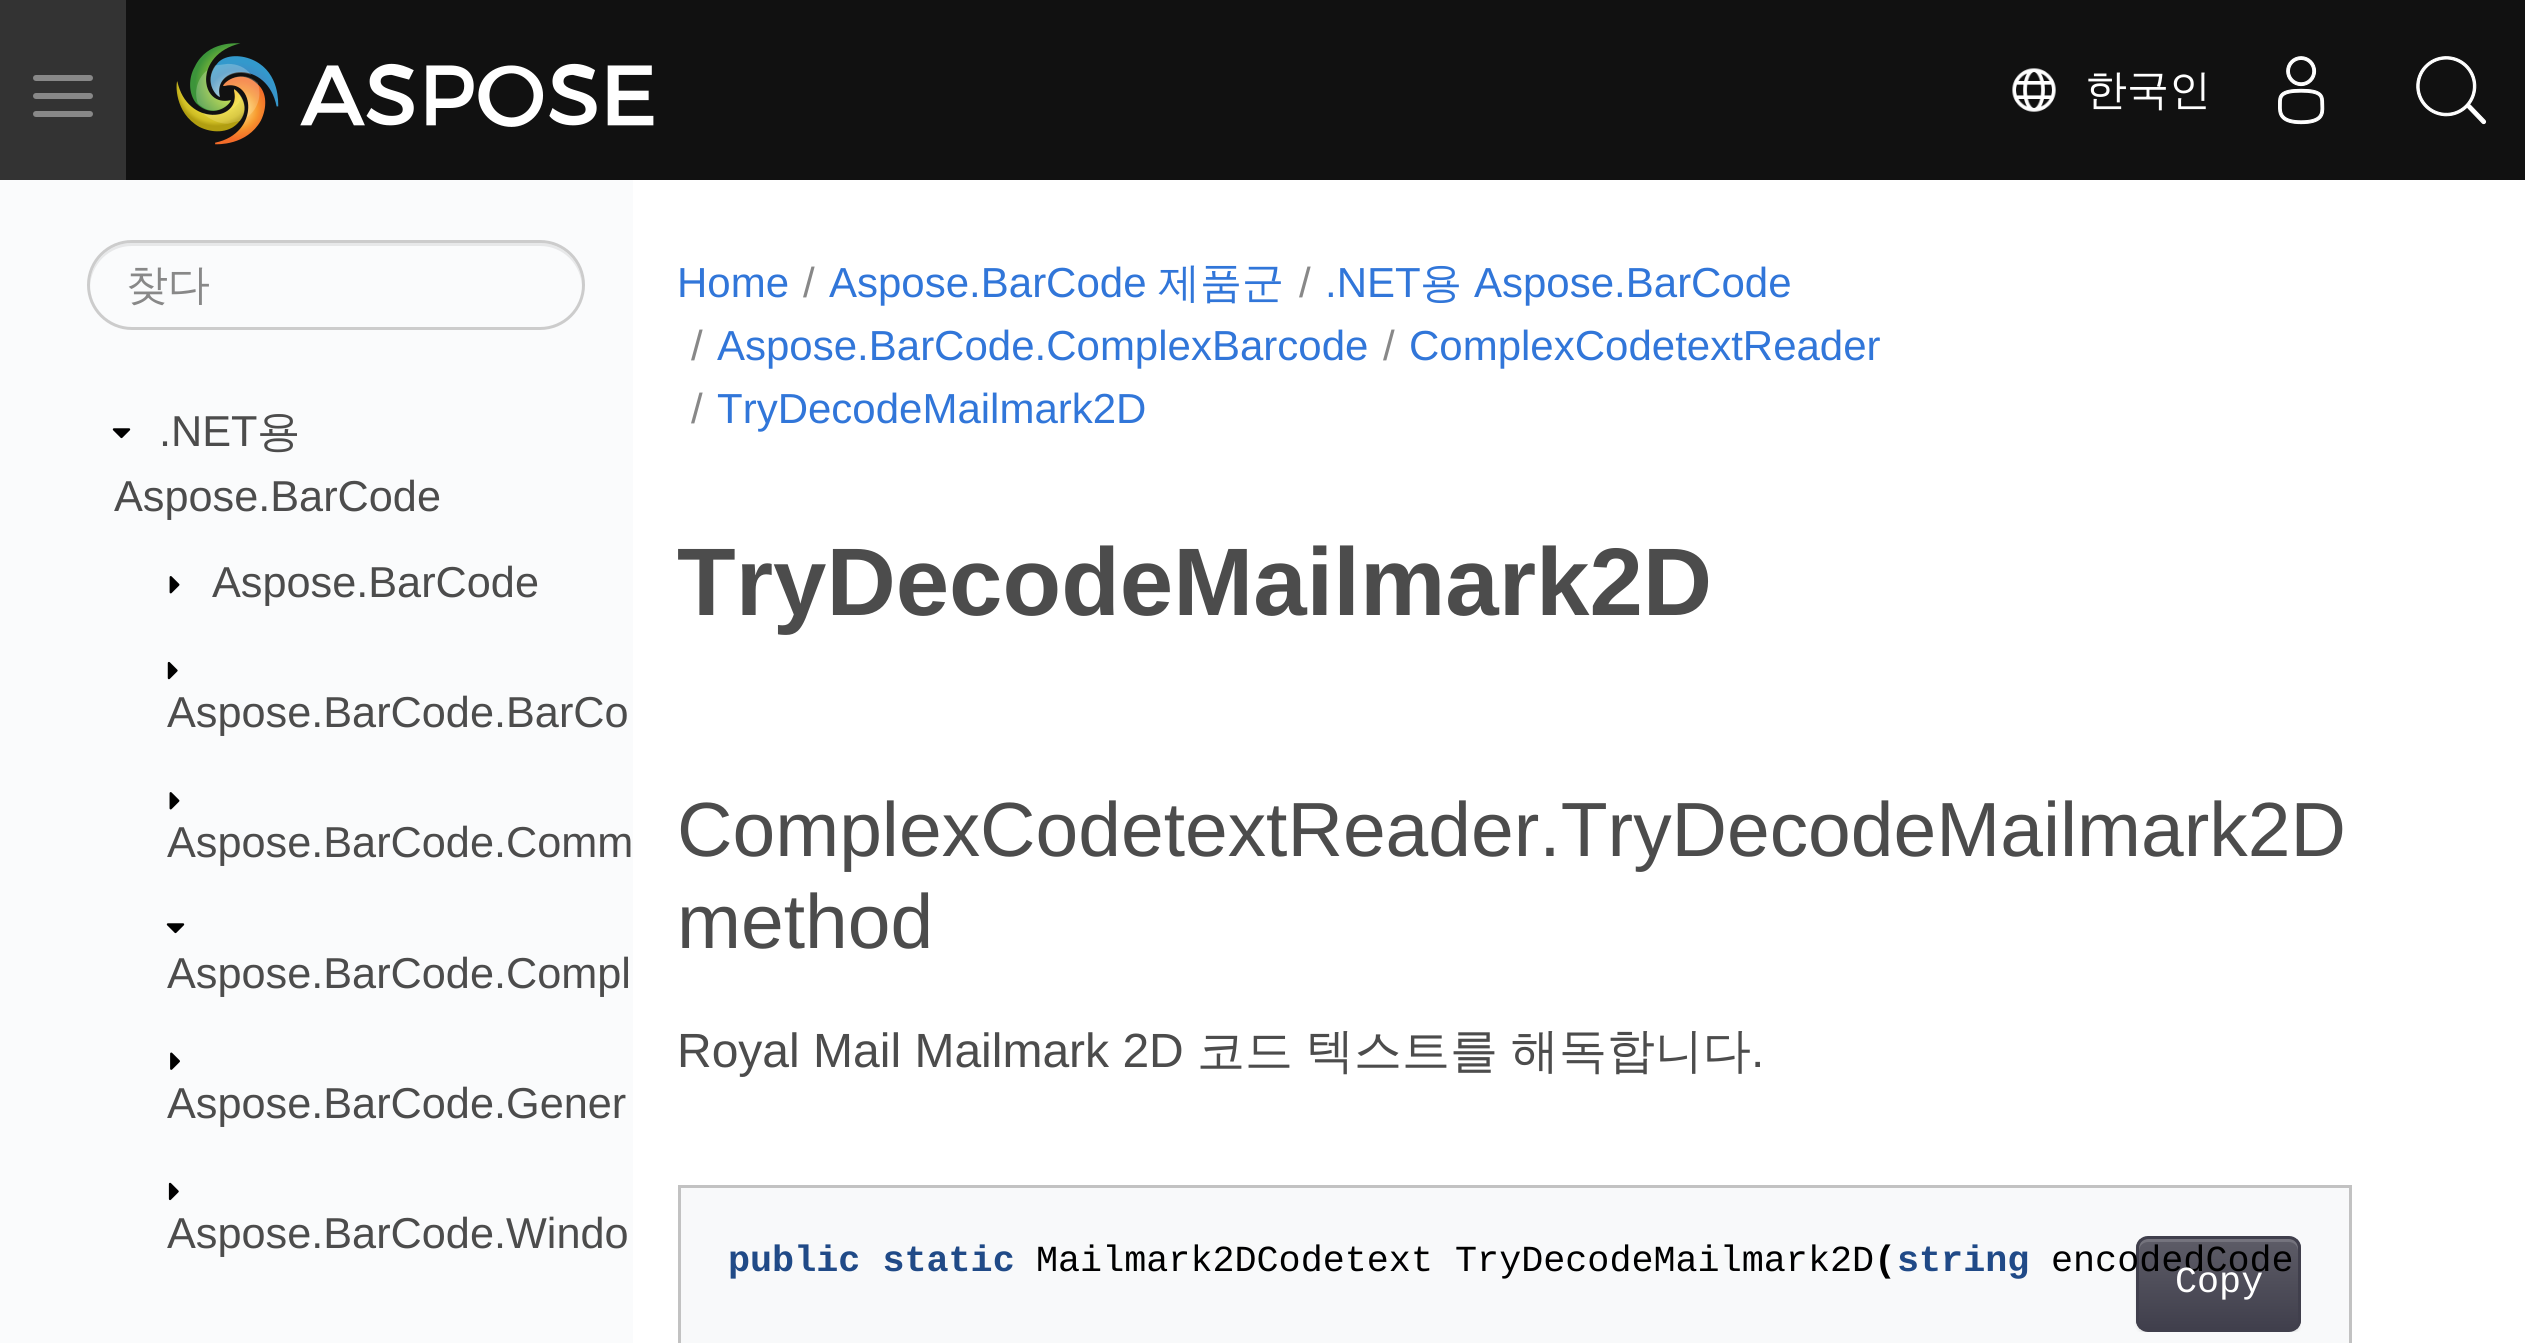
import math
import cairo


def use_color(cr, r, g, b):
  cr.set_source_rgb(r / 255, g / 255, b / 255)

def text(cr, x, y, s, family, size, color, bold=False, italic=False):
  cr.select_font_face(family, cairo.FONT_SLANT_ITALIC if italic else cairo.FONT_SLANT_NORMAL, cairo.FONT_WEIGHT_BOLD if bold else cairo.FONT_WEIGHT_NORMAL)
  cr.set_font_size(size)
  use_color(cr, *color)
  cr.move_to(x, y)
  cr.show_text(s)

def box(cr, x, y, w, h, *color):
  use_color(cr, *color)
  cr.rectangle(x, y, w, h)
  cr.fill()

def round_rect(cr, x, y, w, h, r):
  cr.new_sub_path()
  for i, (u, v) in enumerate([(x + w - r, y + h - r), (x + r, y + h - r), (x + r, y + r), (x + w - r, y + r)]):
    cr.arc(u, v, r, i * math.pi / 2, (i + 1) * math.pi / 2)
  cr.close_path()

def shadow(cr, x, y, w, h, r, blur, alpha):
  cr.push_group_with_content(cairo.CONTENT_ALPHA)
  cr.set_operator(cairo.OPERATOR_SOURCE)
  for i in range(15, -16, -2):
    e = blur * i / 6
    if min(w, h) + 2 * e > 0:
      cr.set_source_rgba(0, 0, 0, alpha * math.erfc((i - 1) / 8.5) / 2)
      round_rect(cr, x - e, y - e, w + 2 * e, h + 2 * e, max(0, min(r + e + blur * .6, min(w, h) / 2 + e)))
      cr.fill()
  cr.mask(cr.pop_group())

def picture(cr, path, x, y, w, h):
  cr.save()
  cr.set_source_surface(cairo.ImageSurface.create_from_png(path), x, y)
  cr.rectangle(x, y, w, h)
  cr.fill()
  cr.restore()

def draw(cr):
  use_color(cr, 255, 255, 255)
  cr.paint()
  box(cr, 126, 0, 2399, 180, 17, 17, 17)
  box(cr, 0, 0, 126, 180, 51, 51, 51)
  use_color(cr, 136, 136, 136)
  round_rect(cr, 33, 75, 60, 6, 3)
  cr.fill()
  round_rect(cr, 33, 93, 60, 6, 3)
  cr.fill()
  round_rect(cr, 33, 111, 60, 6, 3)
  cr.fill()
  picture(cr, "img_01.png", 176, 43, 478, 102)
  picture(cr, "img_02.png", 2012, 68, 44, 44)
  picture(cr, "img_03.png", 2278, 56, 47, 69)
  picture(cr, "img_04.png", 2416, 56, 71, 69)
  box(cr, 0, 180, 633, 1163, 250, 251, 252)
  use_color(cr, 231, 232, 233)
  cr.new_path()
  cr.move_to(132, 246)
  cr.line_to(540, 246)
  cr.curve_to(563, 246, 581, 264, 582, 287)
  cr.line_to(582, 285)
  cr.curve_to(582, 262, 563, 243, 540, 243)
  cr.line_to(132, 243)
  cr.curve_to(109, 243, 90, 262, 90, 285)
  cr.line_to(90, 287)
  cr.curve_to(91, 264, 109, 246, 132, 246)
  cr.close_path()
  cr.fill()
  round_rect(cr, 88.5, 241.5, 495, 87, 43.5)
  use_color(cr, 204, 204, 204)
  cr.set_line_width(3)
  cr.stroke()
  picture(cr, "img_05.png", 112, 428, 19, 11)
  picture(cr, "img_06.png", 169, 576, 11, 18)
  picture(cr, "img_07.png", 167, 661, 11, 19)
  picture(cr, "img_08.png", 169, 792, 11, 18)
  picture(cr, "img_05.png", 166, 923, 19, 11)
  picture(cr, "img_09.png", 170, 1052, 10, 18)
  picture(cr, "img_10.png", 168, 1182, 11, 19)
  use_color(cr, 248, 249, 250)
  cr.rectangle(679.5, 1186.5, 1671, 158)
  cr.fill_preserve()
  use_color(cr, 194, 194, 194)
  cr.stroke()
  cr.save()
  cr.rectangle(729, 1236, 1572, 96)
  cr.clip()
  use_color(cr, 0, 0, 0)
  shadow(cr, 2136, 1239, 165, 96, 12, 1.5, 0.07)
  cr.restore()
  cr.save()
  round_rect(cr, 2136, 1236, 165, 96, 12)
  cr.clip()
  gradient = cairo.LinearGradient(2219, 1239, 2219, 1329)
  gradient.add_color_stop_rgba(0, 0.365, 0.361, 0.404, 1)
  gradient.add_color_stop_rgba(1, 0.251, 0.247, 0.298, 1)
  cr.set_source(gradient)
  cr.rectangle(2136, 1239, 165, 90)
  cr.fill()
  cr.restore()
  cr.set_source_rgba(1, 1, 1, 0.15)
  cr.new_path()
  cr.move_to(2148, 1242)
  cr.line_to(2289, 1242)
  cr.curve_to(2294, 1242, 2298, 1246, 2298, 1251)
  cr.line_to(2298, 1248)
  cr.curve_to(2298, 1243, 2294, 1239, 2289, 1239)
  cr.line_to(2148, 1239)
  cr.curve_to(2143, 1239, 2139, 1243, 2139, 1248)
  cr.line_to(2139, 1251)
  cr.curve_to(2139, 1246, 2143, 1242, 2148, 1242)
  cr.close_path()
  cr.fill()
  round_rect(cr, 2137.5, 1237.5, 162, 93, 10.5)
  use_color(cr, 64, 63, 76)
  cr.stroke()
  text(cr, 2085, 104, "한국인", "WenQuanYi Zen Hei Medium", 42, (255, 255, 255))
  text(cr, 126, 299, "찾다", "WenQuanYi Zen Hei Medium", 42, (136, 136, 136))
  text(cr, 159, 446, ".NET", "Liberation Sans", 43.25, (76, 76, 76))
  text(cr, 257, 446, "용", "WenQuanYi Zen Hei Medium", 43.25, (76, 76, 76))
  text(cr, 114, 511, "Aspose.BarCode", "Liberation Sans", 43.25, (76, 76, 76))
  text(cr, 212, 597, "Aspose.BarCode", "Liberation Sans", 43.25, (76, 76, 76))
  text(cr, 167, 727, "Aspose.BarCode.BarCo", "Liberation Sans", 43.25, (76, 76, 76))
  text(cr, 167, 857, "Aspose.BarCode.Comm", "Liberation Sans", 43.25, (76, 76, 76))
  text(cr, 167, 988, "Aspose.BarCode.Compl", "Liberation Sans", 43.25, (76, 76, 76))
  text(cr, 167, 1118, "Aspose.BarCode.Gener", "Liberation Sans", 43.25, (76, 76, 76))
  text(cr, 167, 1248, "Aspose.BarCode.Windo", "Liberation Sans", 43.25, (76, 76, 76))
  text(cr, 677, 297, "Home", "Liberation Sans", 42, (49, 118, 217))
  text(cr, 803, 297, "/", "Liberation Sans", 42, (136, 136, 136))
  text(cr, 829, 297, "Aspose.BarCode", "Liberation Sans", 42, (49, 118, 217))
  text(cr, 1158, 297, "제품군", "WenQuanYi Zen Hei Medium", 42, (49, 118, 217))
  text(cr, 1299, 297, "/", "Liberation Sans", 42, (136, 136, 136))
  text(cr, 1325, 297, ".NET", "Liberation Sans", 42, (49, 118, 217))
  text(cr, 1420, 297, "용", "WenQuanYi Zen Hei Medium", 42, (49, 118, 217))
  text(cr, 1474, 297, "Aspose.BarCode", "Liberation Sans", 42, (49, 118, 217))
  text(cr, 691, 360, "/", "Liberation Sans", 42, (136, 136, 136))
  text(cr, 717, 360, "Aspose.BarCode.ComplexBarcode", "Liberation Sans", 42, (49, 118, 217))
  text(cr, 1383, 360, "/", "Liberation Sans", 42, (136, 136, 136))
  text(cr, 1409, 360, "ComplexCodetextReader", "Liberation Sans", 42, (49, 118, 217))
  text(cr, 691, 423, "/", "Liberation Sans", 42, (136, 136, 136))
  text(cr, 717, 423, "TryDecodeMailmark2D", "Liberation Sans", 42, (49, 118, 217))
  text(cr, 677, 615, "TryDecodeMailmark2D", "Liberation Sans", 96, (76, 76, 76), bold=True)
  text(cr, 677, 856, "ComplexCodetextReader.TryDecodeMailmark2D", "Liberation Sans", 76.8, (76, 76, 76))
  text(cr, 677, 948, "method", "Liberation Sans", 76.8, (76, 76, 76))
  text(cr, 677, 1067, "Royal Mail Mailmark 2D", "Liberation Sans", 48, (76, 76, 76))
  text(cr, 1197, 1067, "코드", "WenQuanYi Zen Hei Medium", 48, (76, 76, 76))
  text(cr, 1306, 1067, "텍스트를", "WenQuanYi Zen Hei Medium", 48, (76, 76, 76))
  text(cr, 1511, 1067, "해독합니다", "WenQuanYi Zen Hei Medium", 48, (76, 76, 76))
  text(cr, 1751, 1067, ".", "Liberation Sans", 48, (76, 76, 76))
  text(cr, 728, 1271, "public static", "Liberation Mono", 36.75, (32, 74, 135), bold=True)
  text(cr, 1036, 1271, "Mailmark2DCodetext TryDecodeMailmark2D", "Liberation Mono", 36.75, (0, 0, 0))
  text(cr, 1874, 1271, "(", "Liberation Mono", 36.75, (0, 0, 0), bold=True)
  text(cr, 1897, 1271, "string", "Liberation Mono", 36.75, (32, 74, 135), bold=True)
  text(cr, 2051, 1271, "encodedCode", "Liberation Mono", 36.75, (0, 0, 0))
  text(cr, 2175, 1292, "Copy", "Liberation Mono", 36.75, (255, 255, 255))


surface = cairo.ImageSurface(cairo.FORMAT_RGB24, 2525, 1343)
cr = cairo.Context(surface)
options = cairo.FontOptions()
options.set_hint_metrics(cairo.HINT_METRICS_OFF)
options.set_hint_style(cairo.HINT_STYLE_NONE)
cr.set_font_options(options)
cr.set_miter_limit(4)
draw(cr)
surface.write_to_png("out.png")
